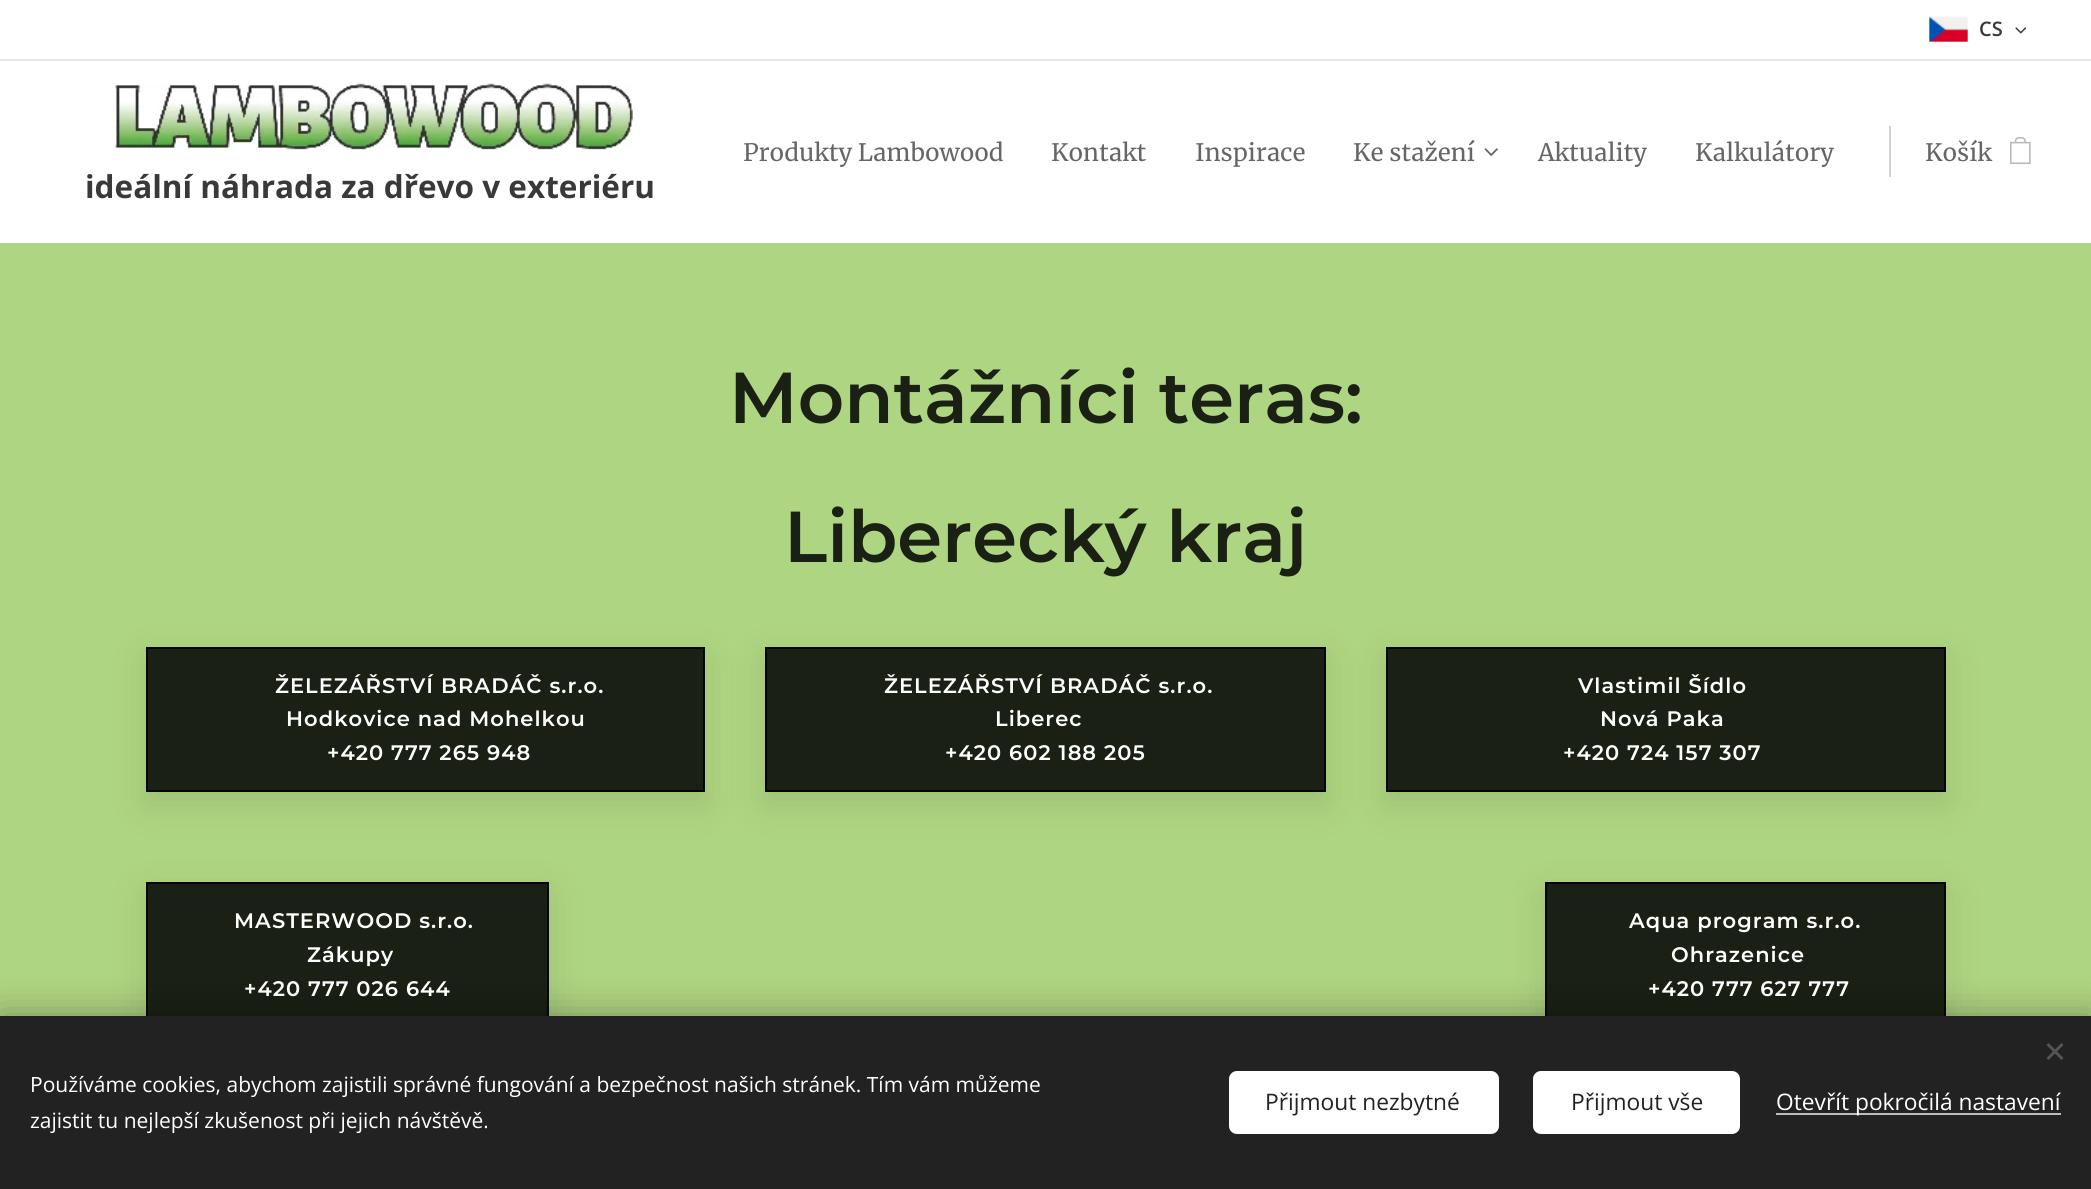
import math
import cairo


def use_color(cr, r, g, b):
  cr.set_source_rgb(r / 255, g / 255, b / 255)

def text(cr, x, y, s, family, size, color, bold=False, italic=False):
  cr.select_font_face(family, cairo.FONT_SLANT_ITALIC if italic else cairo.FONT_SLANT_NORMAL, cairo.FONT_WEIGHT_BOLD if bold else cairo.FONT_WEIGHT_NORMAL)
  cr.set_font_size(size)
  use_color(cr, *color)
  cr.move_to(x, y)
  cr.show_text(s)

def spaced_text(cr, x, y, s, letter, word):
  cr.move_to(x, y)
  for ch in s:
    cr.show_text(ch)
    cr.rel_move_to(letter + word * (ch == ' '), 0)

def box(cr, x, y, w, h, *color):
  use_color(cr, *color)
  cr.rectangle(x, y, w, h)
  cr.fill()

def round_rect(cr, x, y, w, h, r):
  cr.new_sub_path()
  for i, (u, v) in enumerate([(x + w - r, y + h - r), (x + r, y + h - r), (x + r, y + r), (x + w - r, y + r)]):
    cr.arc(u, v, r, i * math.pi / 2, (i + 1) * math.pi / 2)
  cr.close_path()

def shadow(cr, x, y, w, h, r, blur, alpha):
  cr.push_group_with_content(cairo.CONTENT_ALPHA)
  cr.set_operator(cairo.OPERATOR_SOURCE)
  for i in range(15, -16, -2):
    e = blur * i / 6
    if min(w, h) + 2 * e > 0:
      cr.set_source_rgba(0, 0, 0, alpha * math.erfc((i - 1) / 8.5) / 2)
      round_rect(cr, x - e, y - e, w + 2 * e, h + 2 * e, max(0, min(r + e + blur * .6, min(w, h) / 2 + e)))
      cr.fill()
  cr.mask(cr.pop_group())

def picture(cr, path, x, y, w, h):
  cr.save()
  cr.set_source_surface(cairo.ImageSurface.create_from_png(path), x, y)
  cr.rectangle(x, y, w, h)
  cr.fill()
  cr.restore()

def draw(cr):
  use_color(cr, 255, 255, 255)
  cr.paint()
  picture(cr, "img_01.png", 1929, 16, 39, 26)
  picture(cr, "img_02.png", 2015, 27, 12, 7)
  box(cr, 0, 59, 2091, 2, 232, 232, 232)
  picture(cr, "img_03.png", 1484, 148, 14, 8)
  box(cr, 1889, 126, 2, 51, 209, 209, 209)
  picture(cr, "img_04.png", 2010, 137, 21, 28)
  picture(cr, "img_05.png", 115, 83, 518, 67)
  box(cr, 0, 243, 2091, 773, 174, 213, 129)
  use_color(cr, 0, 0, 0)
  shadow(cr, 146, 659, 559, 145, 0, 19, 0.1)
  use_color(cr, 26, 32, 19)
  cr.rectangle(147, 648, 557, 143)
  cr.fill_preserve()
  use_color(cr, 4, 5, 3)
  cr.stroke()
  use_color(cr, 0, 0, 0)
  shadow(cr, 765, 659, 561, 145, 0, 19, 0.1)
  use_color(cr, 26, 32, 19)
  cr.rectangle(766, 648, 559, 143)
  cr.fill_preserve()
  use_color(cr, 4, 5, 3)
  cr.stroke()
  cr.save()
  cr.set_fill_rule(cairo.FILL_RULE_EVEN_ODD)
  cr.new_path()
  cr.move_to(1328, 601)
  cr.line_to(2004, 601)
  cr.line_to(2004, 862)
  cr.line_to(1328, 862)
  cr.close_path()
  cr.move_to(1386, 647)
  cr.line_to(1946, 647)
  cr.line_to(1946, 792)
  cr.line_to(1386, 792)
  cr.close_path()
  cr.clip()
  use_color(cr, 0, 0, 0)
  shadow(cr, 1386, 659, 560, 145, 0, 19, 0.1)
  cr.restore()
  cr.set_source_rgba(0, 0, 0, 0.85)
  cr.rectangle(1387, 648, 558, 143)
  cr.fill_preserve()
  use_color(cr, 4, 5, 3)
  cr.stroke()
  cr.save()
  cr.set_fill_rule(cairo.FILL_RULE_EVEN_ODD)
  cr.new_path()
  cr.move_to(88, 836)
  cr.line_to(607, 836)
  cr.line_to(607, 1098)
  cr.line_to(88, 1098)
  cr.close_path()
  cr.move_to(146, 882)
  cr.line_to(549, 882)
  cr.line_to(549, 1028)
  cr.line_to(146, 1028)
  cr.close_path()
  cr.clip()
  use_color(cr, 0, 0, 0)
  shadow(cr, 146, 894, 403, 146, 0, 19, 0.1)
  cr.restore()
  cr.set_source_rgba(0, 0, 0, 0.85)
  cr.rectangle(148, 884, 399, 132)
  cr.fill()
  cr.rectangle(147, 883, 401, 144)
  use_color(cr, 4, 5, 3)
  cr.stroke()
  cr.save()
  cr.set_fill_rule(cairo.FILL_RULE_EVEN_ODD)
  cr.new_path()
  cr.move_to(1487, 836)
  cr.line_to(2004, 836)
  cr.line_to(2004, 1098)
  cr.line_to(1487, 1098)
  cr.close_path()
  cr.move_to(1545, 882)
  cr.line_to(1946, 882)
  cr.line_to(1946, 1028)
  cr.line_to(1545, 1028)
  cr.close_path()
  cr.clip()
  use_color(cr, 0, 0, 0)
  shadow(cr, 1545, 894, 401, 146, 0, 19, 0.1)
  cr.restore()
  cr.set_source_rgba(0, 0, 0, 0.85)
  cr.rectangle(1547, 884, 397, 132)
  cr.fill()
  cr.rectangle(1546, 883, 399, 144)
  use_color(cr, 4, 5, 3)
  cr.stroke()
  use_color(cr, 0, 0, 0)
  shadow(cr, 0, 1016, 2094, 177, 0, 19, 0.33)
  box(cr, 0, 1016, 2091, 173, 34, 34, 34)
  use_color(cr, 85, 85, 85)
  cr.new_path()
  cr.move_to(2046.5, 1058)
  cr.line_to(2061.5, 1043)
  cr.line_to(2063.5, 1045)
  cr.line_to(2048.5, 1060)
  cr.close_path()
  cr.fill()
  cr.new_path()
  cr.move_to(2048.5, 1043)
  cr.line_to(2063.5, 1058)
  cr.line_to(2061.5, 1060)
  cr.line_to(2046.5, 1045)
  cr.close_path()
  cr.fill()
  use_color(cr, 255, 255, 255)
  round_rect(cr, 1229, 1071, 270, 63, 8)
  cr.fill()
  round_rect(cr, 1533, 1071, 207, 63, 8)
  cr.fill()
  box(cr, 1776, 1113, 285, 2, 189, 189, 189)
  text(cr, 1979, 36, "CS", "Open Sans SemiBold", 20, (57, 57, 57))
  text(cr, 743, 161, "Produkty Lambowood", "Merriweather", 24, (102, 102, 102))
  text(cr, 1051, 161, "Kontakt", "Merriweather", 24, (102, 102, 102))
  text(cr, 1195, 161, "Inspirace", "Merriweather", 24, (102, 102, 102))
  text(cr, 1353, 161, "Ke stažení", "Merriweather", 24, (102, 102, 102))
  text(cr, 1538, 161, "Aktuality", "Merriweather", 24, (102, 102, 102))
  text(cr, 1695, 161, "Kalkulátory", "Merriweather", 24, (102, 102, 102))
  text(cr, 1925, 161, "Košík", "Merriweather", 24, (102, 102, 102))
  text(cr, 85, 198, "ideální náhrada za dřevo v exteriéru", "Open Sans", 31.5, (57, 57, 57), bold=True)
  text(cr, 729, 423, "Montážníci teras:", "Montserrat SemiBold", 72, (26, 32, 19))
  text(cr, 784, 562, "Liberecký kraj", "Montserrat SemiBold", 72, (26, 32, 19))
  cr.set_font_size(21)
  use_color(cr, 255, 255, 255)
  spaced_text(cr, 275, 693, "ŽELEZÁŘSTVÍ BRADÁČ s.r.o.", 1.05, 0)
  spaced_text(cr, 286, 726, "Hodkovice nad Mohelkou", 1.05, 0)
  spaced_text(cr, 327, 760, "+420 777 265 948", 1.05, 0)
  spaced_text(cr, 884, 693, "ŽELEZÁŘSTVÍ BRADÁČ s.r.o.", 1.05, 0)
  spaced_text(cr, 995, 726, "Liberec", 1.05, 0)
  spaced_text(cr, 945, 760, "+420 602 188 205", 1.05, 0)
  spaced_text(cr, 1578, 693, "Vlastimil Šídlo", 1.05, 0)
  spaced_text(cr, 1600, 726, "Nová Paka", 1.05, 0)
  spaced_text(cr, 1563, 760, "+420 724 157 307", 1.05, 0)
  spaced_text(cr, 234, 928, "MASTERWOOD s.r.o.", 1.05, 0)
  spaced_text(cr, 307, 962, "Zákupy", 1.05, 0)
  spaced_text(cr, 244, 996, "+420 777 026 644", 1.05, 0)
  spaced_text(cr, 1629, 928, "Aqua program s.r.o.", 1.05, 0)
  spaced_text(cr, 1671, 962, "Ohrazenice", 1.05, 0)
  spaced_text(cr, 1648, 996, "+420 777 627 777", 1.05, 0)
  text(cr, 30, 1092, "Používáme cookies, abychom zajistili správné fungování a bezpečnost našich stránek. Tím vám můžeme", "Open Sans", 21, (255, 255, 255))
  text(cr, 30, 1128, "zajistit tu nejlepší zkušenost při jejich návštěvě.", "Open Sans", 21, (255, 255, 255))
  text(cr, 1265, 1110, "Přijmout nezbytné", "Open Sans", 22.75, (34, 34, 34))
  text(cr, 1571, 1110, "Přijmout vše", "Open Sans", 22.75, (34, 34, 34))
  text(cr, 1776, 1110, "Otevřít pokročilá nastavení", "Open Sans", 22.75, (255, 255, 255))


surface = cairo.ImageSurface(cairo.FORMAT_RGB24, 2091, 1189)
cr = cairo.Context(surface)
options = cairo.FontOptions()
options.set_hint_metrics(cairo.HINT_METRICS_OFF)
options.set_hint_style(cairo.HINT_STYLE_NONE)
cr.set_font_options(options)
cr.set_miter_limit(4)
draw(cr)
surface.write_to_png("out.png")
